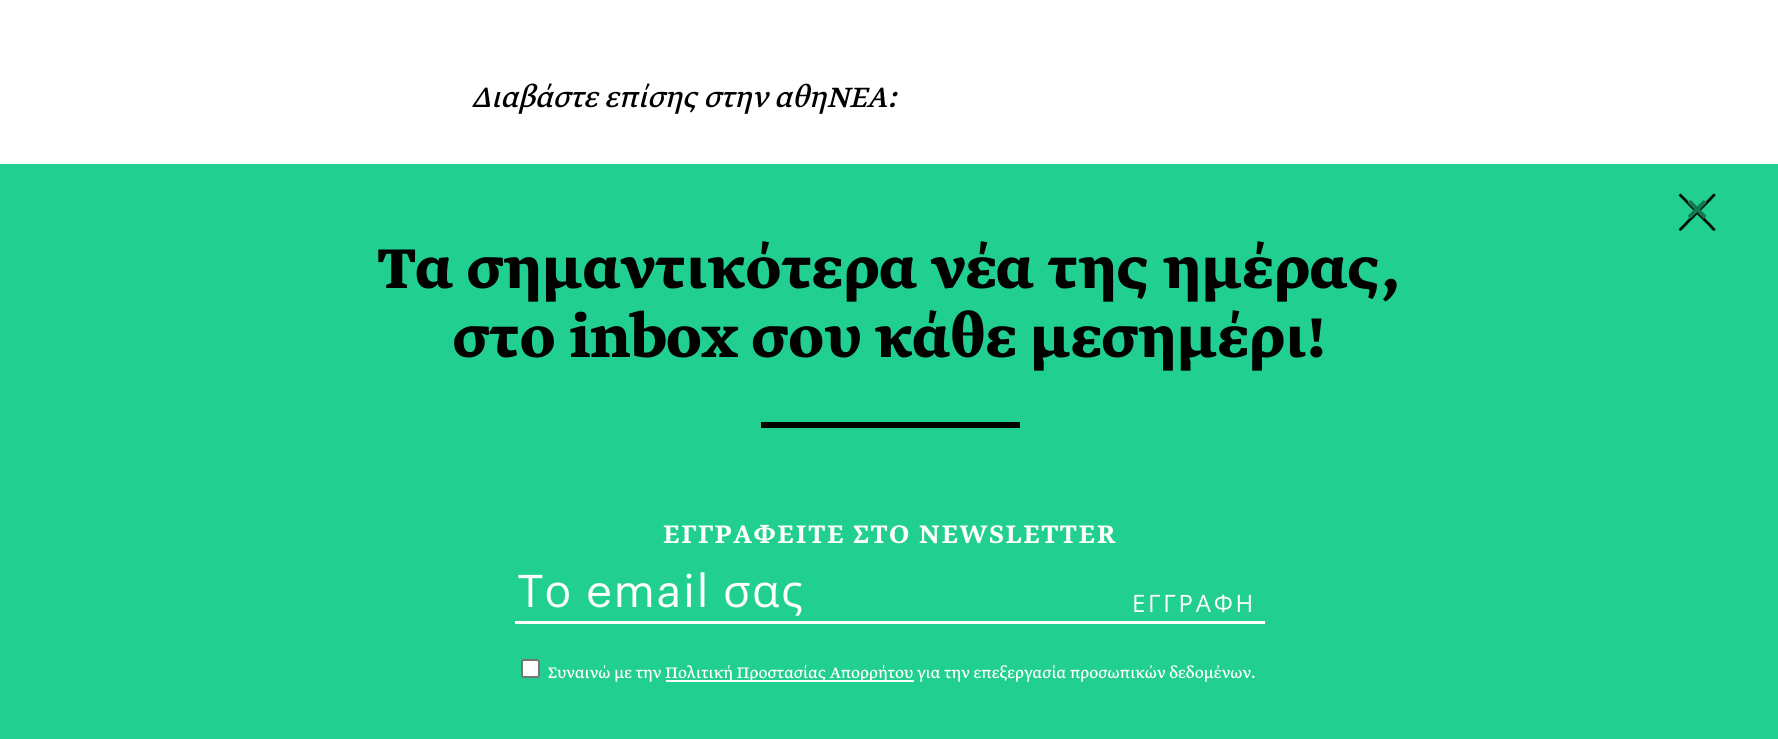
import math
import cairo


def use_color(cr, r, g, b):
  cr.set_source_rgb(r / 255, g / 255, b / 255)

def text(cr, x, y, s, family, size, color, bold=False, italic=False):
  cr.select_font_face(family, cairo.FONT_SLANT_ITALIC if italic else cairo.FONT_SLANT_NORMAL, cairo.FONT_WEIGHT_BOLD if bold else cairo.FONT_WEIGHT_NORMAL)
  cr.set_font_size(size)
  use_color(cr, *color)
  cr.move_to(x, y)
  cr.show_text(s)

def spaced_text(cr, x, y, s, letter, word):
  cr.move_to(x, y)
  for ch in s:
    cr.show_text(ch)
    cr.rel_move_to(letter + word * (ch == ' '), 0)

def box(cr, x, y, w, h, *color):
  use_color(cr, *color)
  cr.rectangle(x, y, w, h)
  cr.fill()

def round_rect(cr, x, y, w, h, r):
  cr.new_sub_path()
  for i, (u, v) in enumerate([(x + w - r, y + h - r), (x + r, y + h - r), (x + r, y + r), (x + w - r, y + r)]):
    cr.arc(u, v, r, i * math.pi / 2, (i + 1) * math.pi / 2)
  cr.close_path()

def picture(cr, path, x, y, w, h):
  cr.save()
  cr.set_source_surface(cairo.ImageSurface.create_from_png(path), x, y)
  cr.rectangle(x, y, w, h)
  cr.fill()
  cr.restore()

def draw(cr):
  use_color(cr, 255, 255, 255)
  cr.paint()
  box(cr, 0, 164, 1778, 575, 33, 207, 144)
  picture(cr, "img_01.png", 1678, 193, 38, 38)
  box(cr, 761, 422, 259, 6, 0, 0, 0)
  box(cr, 515, 621, 750, 3, 255, 255, 255)
  round_rect(cr, 522, 660, 17, 17, 2)
  cr.fill_preserve()
  use_color(cr, 118, 118, 118)
  cr.stroke()
  box(cr, 666, 680, 248, 2, 255, 255, 255)
  text(cr, 471, 107, "Διαβάστε επίσης στην αθηΝΕΑ:", "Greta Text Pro", 33, (0, 0, 0), italic=True)
  text(cr, 1686, 222, "×", "Liberation Sans", 38, (19, 119, 83), bold=True)
  text(cr, 378, 288, "Τα σημαντικότερα νέα της ημέρας,", "Greta Text Pro", 66, (0, 0, 0), bold=True)
  text(cr, 453, 357, "στο inbox σου κάθε μεσημέρι!", "Greta Text Pro", 66, (0, 0, 0), bold=True)
  cr.select_font_face("Greta Text Pro Medium")
  cr.set_font_size(30)
  use_color(cr, 255, 255, 255)
  spaced_text(cr, 663, 543, "ΕΓΓPΑΦΕΙΤΕ ΣΤΟ NEWSLETTER", 1.9, 0)
  cr.save()
  cr.rectangle(518, 569, 570, 48)
  cr.clip()
  cr.select_font_face("Open Sans")
  cr.set_font_size(45)
  spaced_text(cr, 518, 607, "Το", 1.5, 0)
  cr.restore()
  cr.select_font_face("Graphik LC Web")
  cr.set_font_size(45)
  spaced_text(cr, 586, 607, "email", 1.5, 0)
  cr.select_font_face("Open Sans")
  spaced_text(cr, 723, 607, "σας", 1.5, 0)
  cr.set_font_size(24)
  spaced_text(cr, 1132, 612, "ΕΓΓΡΑΦΗ", 2.75, 0)
  text(cr, 548, 678, "Συναινώ με την", "Greta Text Pro", 18, (255, 255, 255))
  text(cr, 665, 678, "Πολιτική Προστασίας Απορρήτου για την επεξεργασία προσωπικών δεδομένων.", "Greta Text Pro", 18, (255, 255, 255))


surface = cairo.ImageSurface(cairo.FORMAT_RGB24, 1778, 739)
cr = cairo.Context(surface)
options = cairo.FontOptions()
options.set_hint_metrics(cairo.HINT_METRICS_OFF)
options.set_hint_style(cairo.HINT_STYLE_NONE)
cr.set_font_options(options)
cr.set_miter_limit(4)
draw(cr)
surface.write_to_png("out.png")
